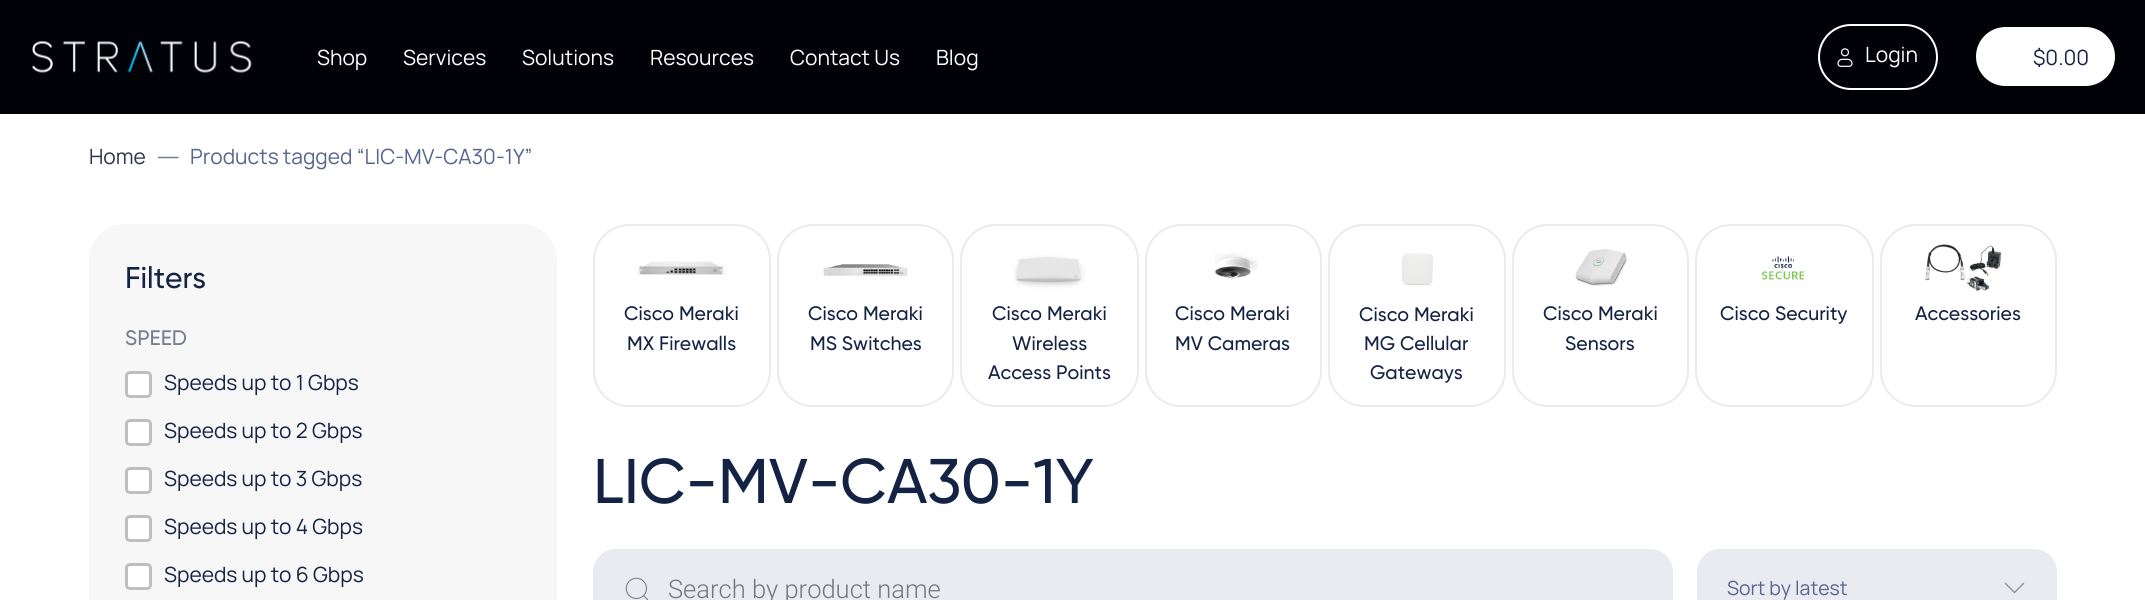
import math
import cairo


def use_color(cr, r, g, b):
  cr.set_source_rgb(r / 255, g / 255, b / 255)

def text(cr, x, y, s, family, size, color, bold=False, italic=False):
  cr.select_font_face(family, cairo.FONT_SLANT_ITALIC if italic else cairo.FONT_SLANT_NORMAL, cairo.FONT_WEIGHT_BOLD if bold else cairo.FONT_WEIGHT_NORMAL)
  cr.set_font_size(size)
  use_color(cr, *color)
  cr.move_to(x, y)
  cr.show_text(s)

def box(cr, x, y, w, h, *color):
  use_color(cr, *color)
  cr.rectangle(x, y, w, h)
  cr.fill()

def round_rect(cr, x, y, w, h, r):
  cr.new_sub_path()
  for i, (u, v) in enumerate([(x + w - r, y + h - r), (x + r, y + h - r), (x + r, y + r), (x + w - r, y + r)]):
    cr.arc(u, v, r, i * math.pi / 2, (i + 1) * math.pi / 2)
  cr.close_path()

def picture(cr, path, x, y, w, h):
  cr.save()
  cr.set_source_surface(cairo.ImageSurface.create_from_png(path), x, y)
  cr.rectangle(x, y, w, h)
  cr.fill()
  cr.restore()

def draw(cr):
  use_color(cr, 255, 255, 255)
  cr.paint()
  box(cr, 0, 0, 2145, 114, 0, 2, 7)
  picture(cr, "img_01.png", 32, 40, 220, 33)
  round_rect(cr, 1819, 25, 118, 64, 32)
  use_color(cr, 255, 255, 255)
  cr.stroke()
  picture(cr, "img_02.png", 1837, 48, 16, 19)
  round_rect(cr, 1977, 28, 137, 57, 28.5)
  cr.fill_preserve()
  cr.stroke()
  cr.save()
  cr.rectangle(158, 156, 21, 3)
  cr.clip()
  cr.new_path()
  cr.move_to(157.5, 157.5)
  cr.line_to(178.5, 157.5)
  use_color(cr, 118, 125, 142)
  cr.set_line_width(1.5)
  cr.stroke()
  cr.restore()
  use_color(cr, 247, 247, 247)
  round_rect(cr, 89, 224, 468, 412, 36)
  cr.fill()
  use_color(cr, 255, 255, 255)
  round_rect(cr, 126.5, 372.5, 24, 24, 3.5)
  cr.fill_preserve()
  use_color(cr, 191, 191, 191)
  cr.set_line_width(3)
  cr.stroke()
  use_color(cr, 255, 255, 255)
  round_rect(cr, 126.5, 420.5, 24, 24, 3.5)
  cr.fill_preserve()
  use_color(cr, 191, 191, 191)
  cr.stroke()
  use_color(cr, 255, 255, 255)
  round_rect(cr, 126.5, 468.5, 24, 24, 3.5)
  cr.fill_preserve()
  use_color(cr, 191, 191, 191)
  cr.stroke()
  use_color(cr, 255, 255, 255)
  round_rect(cr, 126.5, 516.5, 24, 24, 3.5)
  cr.fill_preserve()
  use_color(cr, 191, 191, 191)
  cr.stroke()
  use_color(cr, 255, 255, 255)
  round_rect(cr, 126.5, 564.5, 24, 24, 3.5)
  cr.fill_preserve()
  use_color(cr, 191, 191, 191)
  cr.stroke()
  round_rect(cr, 594, 225, 176, 181, 35)
  use_color(cr, 233, 235, 240)
  cr.set_line_width(2)
  cr.stroke()
  picture(cr, "img_03.png", 636, 261, 91, 14)
  round_rect(cr, 778, 225, 175, 181, 35)
  cr.stroke()
  picture(cr, "img_04.png", 823, 264, 85, 12)
  round_rect(cr, 961, 225, 177, 181, 35)
  cr.stroke()
  picture(cr, "img_05.png", 1013, 255, 73, 34)
  round_rect(cr, 1146, 225, 175, 181, 35)
  cr.stroke()
  picture(cr, "img_06.png", 1214, 253, 44, 26)
  round_rect(cr, 1329, 225, 176, 181, 35)
  cr.stroke()
  picture(cr, "img_07.png", 1402, 253, 31, 32)
  round_rect(cr, 1513, 225, 175, 181, 35)
  cr.stroke()
  picture(cr, "img_08.png", 1575, 248, 53, 38)
  round_rect(cr, 1696, 225, 177, 181, 35)
  cr.stroke()
  picture(cr, "img_09.png", 1762, 256, 43, 24)
  round_rect(cr, 1881, 225, 175, 181, 35)
  cr.stroke()
  picture(cr, "img_10.png", 1925, 244, 77, 47)
  round_rect(cr, 594.5, 550.5, 1077, 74, 21.5)
  cr.fill_preserve()
  cr.set_line_width(3)
  cr.stroke()
  picture(cr, "img_11.png", 625, 577, 24, 23)
  round_rect(cr, 1697, 549, 360, 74, 23)
  cr.fill()
  cr.new_path()
  cr.move_to(2005.5, 583.5)
  cr.line_to(2014.5, 592.5)
  cr.line_to(2023.5, 583.5)
  use_color(cr, 149, 149, 149)
  cr.set_line_width(1.5)
  cr.set_line_cap(cairo.LINE_CAP_ROUND)
  cr.set_line_join(cairo.LINE_JOIN_ROUND)
  cr.stroke()
  text(cr, 317, 65, "Shop", "Manrope", 21, (255, 255, 255))
  text(cr, 403, 65, "Services", "Manrope", 21, (255, 255, 255))
  text(cr, 522, 65, "Solutions", "Manrope", 21, (255, 255, 255))
  text(cr, 650, 65, "Resources", "Manrope", 21, (255, 255, 255))
  text(cr, 790, 65, "Contact Us", "Manrope", 21, (255, 255, 255))
  text(cr, 936, 65, "Blog", "Manrope", 21, (255, 255, 255))
  text(cr, 1865, 62, "Login", "Manrope", 21, (255, 255, 255))
  text(cr, 2033, 65, "$0.00", "Manrope", 21, (20, 34, 68))
  text(cr, 89, 164, "Home", "Manrope", 21, (46, 53, 70))
  text(cr, 190, 164, "Products tagged “LIC-MV-CA30-1Y”", "Manrope", 21, (86, 101, 142))
  text(cr, 125, 288, "Filters", "Gilroy Medium", 30, (20, 34, 68))
  text(cr, 125, 345, "SPEED", "Gilroy Medium", 21, (118, 125, 142))
  text(cr, 164, 390, "Speeds up to 1 Gbps", "Manrope", 21, (20, 34, 68))
  text(cr, 164, 438, "Speeds up to 2 Gbps", "Manrope", 21, (20, 34, 68))
  text(cr, 164, 486, "Speeds up to 3 Gbps", "Manrope", 21, (20, 34, 68))
  text(cr, 164, 534, "Speeds up to 4 Gbps", "Manrope", 21, (20, 34, 68))
  text(cr, 164, 582, "Speeds up to 6 Gbps", "Manrope", 21, (20, 34, 68))
  text(cr, 624, 320, "Cisco Meraki", "Gilroy Medium", 19.5, (20, 34, 68))
  text(cr, 627, 350, "MX Firewalls", "Gilroy Medium", 19.5, (20, 34, 68))
  text(cr, 808, 320, "Cisco Meraki", "Gilroy Medium", 19.5, (20, 34, 68))
  text(cr, 810, 350, "MS Switches", "Gilroy Medium", 19.5, (20, 34, 68))
  text(cr, 992, 320, "Cisco Meraki", "Gilroy Medium", 19.5, (20, 34, 68))
  text(cr, 1012, 350, "Wireless", "Gilroy Medium", 19.5, (20, 34, 68))
  text(cr, 988, 379, "Access Points", "Gilroy Medium", 19.5, (20, 34, 68))
  text(cr, 1175, 320, "Cisco Meraki", "Gilroy Medium", 19.5, (20, 34, 68))
  text(cr, 1175, 350, "MV Cameras", "Gilroy Medium", 19.5, (20, 34, 68))
  text(cr, 1359, 321, "Cisco Meraki", "Gilroy Medium", 19.5, (20, 34, 68))
  text(cr, 1364, 350, "MG Cellular", "Gilroy Medium", 19.5, (20, 34, 68))
  text(cr, 1370, 379, "Gateways", "Gilroy Medium", 19.5, (20, 34, 68))
  text(cr, 1543, 320, "Cisco Meraki", "Gilroy Medium", 19.5, (20, 34, 68))
  text(cr, 1565, 350, "Sensors", "Gilroy Medium", 19.5, (20, 34, 68))
  text(cr, 1720, 320, "Cisco Security", "Gilroy Medium", 19.5, (20, 34, 68))
  text(cr, 1915, 320, "Accessories", "Gilroy Medium", 19.5, (20, 34, 68))
  text(cr, 593, 503, "LIC-MV-CA30-1Y", "Gilroy Medium", 63, (20, 34, 68))
  text(cr, 668, 598, "Search by product name", "Roboto Light", 25.5, (119, 119, 119))
  text(cr, 1727, 595, "Sort by latest", "Manrope", 19.5, (86, 101, 142))


surface = cairo.ImageSurface(cairo.FORMAT_RGB24, 2145, 600)
cr = cairo.Context(surface)
options = cairo.FontOptions()
options.set_hint_metrics(cairo.HINT_METRICS_OFF)
options.set_hint_style(cairo.HINT_STYLE_NONE)
cr.set_font_options(options)
cr.set_miter_limit(4)
draw(cr)
surface.write_to_png("out.png")
